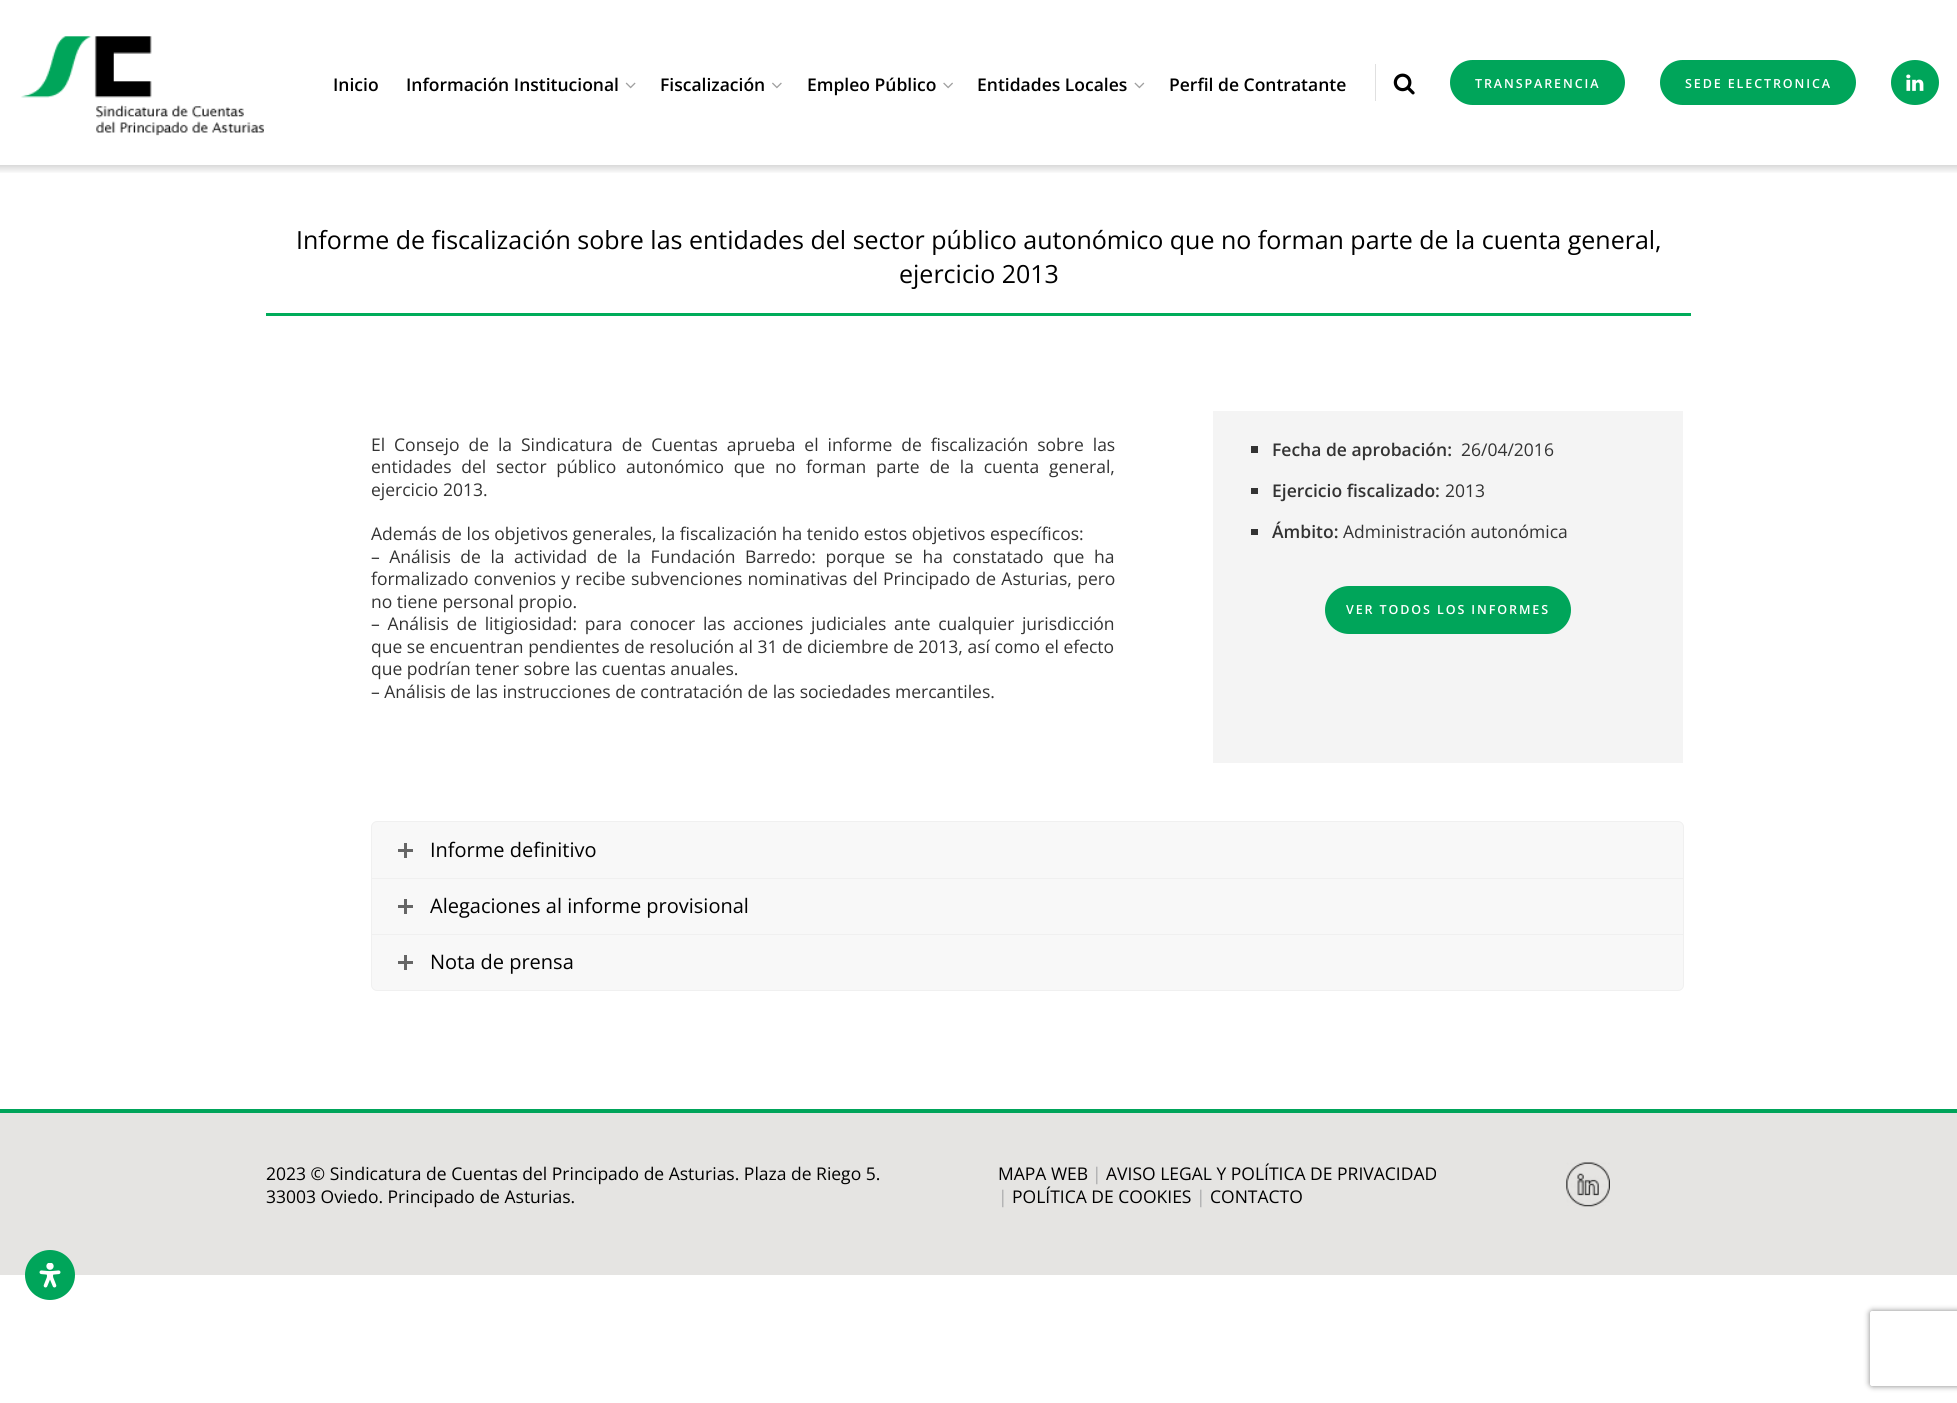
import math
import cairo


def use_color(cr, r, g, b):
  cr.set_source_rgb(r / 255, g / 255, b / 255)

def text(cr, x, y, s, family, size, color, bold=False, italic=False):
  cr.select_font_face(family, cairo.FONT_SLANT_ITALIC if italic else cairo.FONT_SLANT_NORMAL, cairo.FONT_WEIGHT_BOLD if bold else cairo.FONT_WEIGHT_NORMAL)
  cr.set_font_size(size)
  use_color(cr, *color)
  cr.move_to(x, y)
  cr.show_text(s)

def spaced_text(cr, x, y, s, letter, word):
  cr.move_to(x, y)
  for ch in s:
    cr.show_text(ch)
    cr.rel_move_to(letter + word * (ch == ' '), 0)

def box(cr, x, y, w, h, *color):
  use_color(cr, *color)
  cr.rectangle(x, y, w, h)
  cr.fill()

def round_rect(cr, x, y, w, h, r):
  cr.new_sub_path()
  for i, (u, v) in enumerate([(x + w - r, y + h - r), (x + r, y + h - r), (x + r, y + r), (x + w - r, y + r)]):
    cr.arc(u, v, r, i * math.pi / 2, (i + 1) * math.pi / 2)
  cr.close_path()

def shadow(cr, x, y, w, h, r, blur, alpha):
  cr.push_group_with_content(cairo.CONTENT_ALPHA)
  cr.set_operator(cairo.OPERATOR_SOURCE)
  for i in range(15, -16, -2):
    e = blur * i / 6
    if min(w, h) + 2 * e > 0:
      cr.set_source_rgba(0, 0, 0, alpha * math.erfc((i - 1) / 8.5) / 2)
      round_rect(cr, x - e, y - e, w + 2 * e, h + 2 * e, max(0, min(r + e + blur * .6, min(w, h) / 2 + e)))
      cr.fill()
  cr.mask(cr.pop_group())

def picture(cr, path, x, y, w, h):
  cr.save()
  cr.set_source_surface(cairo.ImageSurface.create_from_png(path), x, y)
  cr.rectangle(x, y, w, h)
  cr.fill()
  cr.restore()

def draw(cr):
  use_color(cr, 255, 255, 255)
  cr.paint()
  picture(cr, "img_01.png", 21, 36, 243, 100)
  picture(cr, "img_02.png", 625, 82, 11, 7)
  picture(cr, "img_03.png", 772, 82, 10, 7)
  picture(cr, "img_04.png", 943, 82, 10, 7)
  picture(cr, "img_05.png", 1134, 82, 11, 7)
  box(cr, 1375, 64, 1, 37, 224, 224, 224)
  picture(cr, "img_06.png", 1393, 73, 22, 22)
  use_color(cr, 0, 165, 90)
  round_rect(cr, 1450, 60, 175, 45, 22.5)
  cr.fill()
  round_rect(cr, 1660, 60, 196, 45, 22.5)
  cr.fill()
  cr.new_path()
  cr.move_to(1915, 60)
  cr.curve_to(1928.5, 60, 1939, 70, 1939, 82.5)
  cr.curve_to(1939, 95, 1928.5, 105, 1915, 105)
  cr.curve_to(1901.5, 105, 1891, 95, 1891, 82.5)
  cr.curve_to(1891, 70, 1901.5, 60, 1915, 60)
  cr.close_path()
  cr.fill()
  picture(cr, "img_07.png", 1906, 74, 18, 17)
  gradient = cairo.LinearGradient(979, 165, 979, 174)
  gradient.add_color_stop_rgba(0, 0.851, 0.851, 0.851, 1)
  gradient.add_color_stop_rgba(1, 1, 1, 1, 1)
  cr.set_source(gradient)
  cr.rectangle(0, 165, 1957, 8)
  cr.fill()
  box(cr, 266, 313, 1425, 3, 0, 172, 90)
  box(cr, 1213, 411, 470, 352, 244, 244, 244)
  box(cr, 1251, 446, 7, 7, 51, 51, 51)
  box(cr, 1251, 488, 7, 6, 51, 51, 51)
  box(cr, 1251, 529, 7, 6, 51, 51, 51)
  use_color(cr, 0, 165, 90)
  round_rect(cr, 1325, 586, 246, 48, 24)
  cr.fill()
  use_color(cr, 248, 248, 248)
  cr.new_path()
  cr.move_to(377, 821.5)
  cr.line_to(1678, 821.5)
  cr.curve_to(1681, 821.5, 1683.5, 824, 1683.5, 827)
  cr.line_to(1683.5, 878.5)
  cr.line_to(371.5, 878.5)
  cr.line_to(371.5, 827)
  cr.curve_to(371.5, 824, 374, 821.5, 377, 821.5)
  cr.close_path()
  cr.fill_preserve()
  use_color(cr, 240, 240, 240)
  cr.set_line_width(1)
  cr.stroke()
  box(cr, 398, 849, 15, 3, 102, 102, 102)
  box(cr, 404, 843, 3, 15, 102, 102, 102)
  use_color(cr, 248, 248, 248)
  cr.rectangle(371.5, 878.5, 1312, 56)
  cr.fill_preserve()
  use_color(cr, 240, 240, 240)
  cr.stroke()
  box(cr, 398, 905, 15, 3, 102, 102, 102)
  box(cr, 404, 899, 3, 15, 102, 102, 102)
  use_color(cr, 248, 248, 248)
  cr.new_path()
  cr.move_to(371.5, 934.5)
  cr.line_to(1683.5, 934.5)
  cr.line_to(1683.5, 985)
  cr.curve_to(1683.5, 988, 1681, 990.5, 1678, 990.5)
  cr.line_to(377, 990.5)
  cr.curve_to(374, 990.5, 371.5, 988, 371.5, 985)
  cr.close_path()
  cr.fill_preserve()
  use_color(cr, 240, 240, 240)
  cr.stroke()
  box(cr, 398, 961, 15, 3, 102, 102, 102)
  box(cr, 404, 955, 3, 15, 102, 102, 102)
  box(cr, 0, 1113, 1957, 162, 229, 228, 226)
  box(cr, 0, 1109, 1957, 4, 0, 164, 90)
  picture(cr, "img_08.png", 1566, 1162, 44, 45)
  use_color(cr, 0, 165, 90)
  cr.arc(50, 1275, 25, 0, 2 * math.pi)
  cr.fill()
  picture(cr, "img_09.png", 39, 1263, 22, 25)
  cr.save()
  cr.set_fill_rule(cairo.FILL_RULE_EVEN_ODD)
  cr.new_path()
  cr.move_to(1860, 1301)
  cr.line_to(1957, 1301)
  cr.line_to(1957, 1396)
  cr.line_to(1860, 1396)
  cr.close_path()
  cr.move_to(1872.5, 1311)
  cr.line_to(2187.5, 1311)
  cr.curve_to(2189, 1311, 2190, 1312, 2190, 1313.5)
  cr.line_to(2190, 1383.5)
  cr.curve_to(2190, 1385, 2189, 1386, 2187.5, 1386)
  cr.line_to(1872.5, 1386)
  cr.curve_to(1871, 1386, 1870, 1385, 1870, 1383.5)
  cr.line_to(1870, 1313.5)
  cr.curve_to(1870, 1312, 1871, 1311, 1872.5, 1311)
  cr.close_path()
  cr.clip()
  use_color(cr, 128, 128, 128)
  shadow(cr, 1870, 1311, 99, 75, 2.5, 3, 1)
  cr.restore()
  text(cr, 333, 91, "Inicio", "Open Sans SemiBold", 17.5, (0, 0, 0))
  text(cr, 406, 91, "Información Institucional", "Open Sans SemiBold", 17.5, (0, 0, 0))
  text(cr, 660, 91, "Fiscalización", "Open Sans SemiBold", 17.5, (0, 0, 0))
  text(cr, 807, 91, "Empleo Público", "Open Sans SemiBold", 17.5, (0, 0, 0))
  text(cr, 977, 91, "Entidades Locales", "Open Sans SemiBold", 17.5, (0, 0, 0))
  text(cr, 1169, 91, "Perfil de Contratante", "Open Sans SemiBold", 17.5, (0, 0, 0))
  cr.set_font_size(12.5)
  use_color(cr, 255, 255, 255)
  spaced_text(cr, 1475, 88, "TRANSPARENCIA", 1.9, 0)
  spaced_text(cr, 1685, 88, "SEDE ELECTRONICA", 1.9, 0)
  text(cr, 296, 249, "Informe de fiscalización sobre las entidades del sector público autonómico que no forman parte de la cuenta general,", "Open Sans", 25, (0, 0, 0))
  text(cr, 899, 283, "ejercicio 2013", "Open Sans", 25, (0, 0, 0))
  cr.set_font_size(17.5)
  use_color(cr, 51, 51, 51)
  spaced_text(cr, 371, 451, "El Consejo de la Sindicatura de Cuentas aprueba el informe de fiscalización sobre las", 0, 4.4)
  spaced_text(cr, 371, 473, "entidades del sector público autonómico que no forman parte de la cuenta general,", 0, 5.25)
  text(cr, 371, 496, "ejercicio 2013.", "Open Sans", 17.5, (51, 51, 51))
  text(cr, 371, 540, "Además de los objetivos generales, la fiscalización ha tenido estos objetivos específicos:", "Open Sans", 17.5, (51, 51, 51))
  spaced_text(cr, 371, 563, "– Análisis de la actividad de la Fundación Barredo: porque se ha constatado que ha", 0, 5)
  spaced_text(cr, 371, 585, "formalizado convenios y recibe subvenciones nominativas del Principado de Asturias, pero", 0, 0.75)
  text(cr, 371, 608, "no tiene personal propio.", "Open Sans", 17.5, (51, 51, 51))
  spaced_text(cr, 371, 630, "– Análisis de litigiosidad: para conocer las acciones judiciales ante cualquier jurisdicción", 0, 3.1)
  text(cr, 371, 653, "que se encuentran pendientes de resolución al 31 de diciembre de 2013, así como el efecto", "Open Sans", 17.5, (51, 51, 51))
  text(cr, 371, 675, "que podrían tener sobre las cuentas anuales.", "Open Sans", 17.5, (51, 51, 51))
  text(cr, 371, 698, "– Análisis de las instrucciones de contratación de las sociedades mercantiles.", "Open Sans", 17.5, (51, 51, 51))
  text(cr, 1272, 456, "Fecha de aprobación:", "Open Sans SemiBold", 17.5, (51, 51, 51))
  text(cr, 1461, 456, "26/04/2016", "Open Sans", 17.5, (51, 51, 51))
  text(cr, 1272, 497, "Ejercicio fiscalizado:", "Open Sans SemiBold", 17.5, (51, 51, 51))
  text(cr, 1445, 497, "2013", "Open Sans", 17.5, (51, 51, 51))
  text(cr, 1272, 538, "Ámbito:", "Open Sans SemiBold", 17.5, (51, 51, 51))
  text(cr, 1343, 538, "Administración autonómica", "Open Sans", 17.5, (51, 51, 51))
  cr.select_font_face("Open Sans SemiBold")
  cr.set_font_size(12.5)
  use_color(cr, 255, 255, 255)
  spaced_text(cr, 1346, 614, "VER TODOS LOS INFORMES", 1.9, 0)
  text(cr, 430, 857, "Informe definitivo", "Open Sans", 20, (0, 0, 0))
  text(cr, 430, 913, "Alegaciones al informe provisional", "Open Sans", 20, (0, 0, 0))
  text(cr, 430, 969, "Nota de prensa", "Open Sans", 20, (0, 0, 0))
  text(cr, 266, 1180, "2023 © Sindicatura de Cuentas del Principado de Asturias. Plaza de Riego 5.", "Open Sans", 17.5, (0, 0, 0))
  text(cr, 266, 1203, "33003 Oviedo. Principado de Asturias.", "Open Sans", 17.5, (0, 0, 0))
  text(cr, 998, 1180, "MAPA WEB", "Open Sans", 17.5, (0, 0, 0))
  text(cr, 1092, 1180, "|", "Open Sans", 17.5, (168, 168, 170))
  text(cr, 1106, 1180, "AVISO LEGAL Y POLÍTICA DE PRIVACIDAD", "Open Sans", 17.5, (0, 0, 0))
  text(cr, 998, 1203, "|", "Open Sans", 17.5, (168, 168, 170))
  text(cr, 1012, 1203, "POLÍTICA DE COOKIES", "Open Sans", 17.5, (0, 0, 0))
  text(cr, 1196, 1203, "|", "Open Sans", 17.5, (168, 168, 170))
  text(cr, 1210, 1203, "CONTACTO", "Open Sans", 17.5, (0, 0, 0))


surface = cairo.ImageSurface(cairo.FORMAT_RGB24, 1957, 1403)
cr = cairo.Context(surface)
options = cairo.FontOptions()
options.set_hint_metrics(cairo.HINT_METRICS_OFF)
options.set_hint_style(cairo.HINT_STYLE_NONE)
cr.set_font_options(options)
cr.set_miter_limit(4)
draw(cr)
surface.write_to_png("out.png")
